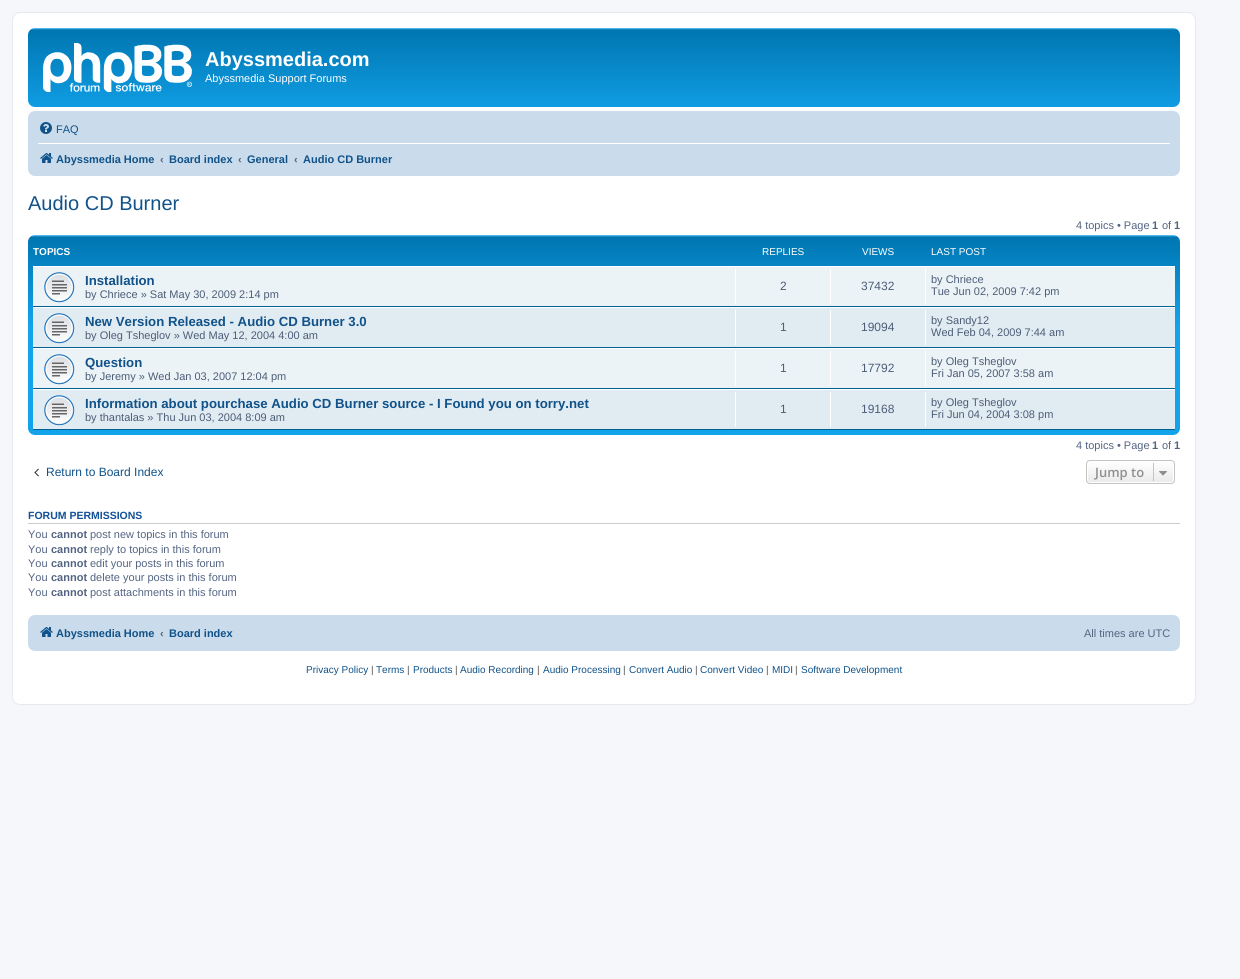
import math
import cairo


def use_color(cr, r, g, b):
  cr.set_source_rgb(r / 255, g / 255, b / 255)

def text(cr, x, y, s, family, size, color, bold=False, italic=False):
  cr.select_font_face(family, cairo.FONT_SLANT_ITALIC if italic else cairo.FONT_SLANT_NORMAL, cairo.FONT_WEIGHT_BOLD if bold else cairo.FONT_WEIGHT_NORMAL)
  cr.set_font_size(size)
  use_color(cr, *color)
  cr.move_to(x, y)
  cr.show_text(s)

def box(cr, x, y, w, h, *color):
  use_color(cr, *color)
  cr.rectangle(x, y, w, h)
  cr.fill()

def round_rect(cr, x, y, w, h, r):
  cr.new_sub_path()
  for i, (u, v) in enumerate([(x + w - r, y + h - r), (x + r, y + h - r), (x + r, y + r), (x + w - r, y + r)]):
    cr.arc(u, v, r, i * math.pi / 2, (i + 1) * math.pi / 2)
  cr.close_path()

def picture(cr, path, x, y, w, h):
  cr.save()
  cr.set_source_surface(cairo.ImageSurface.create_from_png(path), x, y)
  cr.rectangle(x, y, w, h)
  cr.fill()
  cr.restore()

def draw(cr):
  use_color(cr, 245, 247, 250)
  cr.paint()
  use_color(cr, 255, 255, 255)
  round_rect(cr, 12.5, 12.5, 1183, 692, 7.5)
  cr.fill_preserve()
  use_color(cr, 230, 233, 237)
  cr.set_line_width(1)
  cr.stroke()
  gradient = cairo.LinearGradient(604, 28, 604, 120)
  gradient.add_color_stop_rgba(0, 0.416, 0.808, 1, 1)
  gradient.add_color_stop_rgba(0.02, 0, 0.463, 0.694, 1)
  gradient.add_color_stop_rgba(1, 0.071, 0.639, 0.922, 1)
  cr.set_source(gradient)
  round_rect(cr, 28, 28, 1152, 79, 7)
  cr.fill()
  picture(cr, "img_01.png", 43, 43, 149, 49)
  use_color(cr, 202, 220, 235)
  round_rect(cr, 28, 111, 1152, 65, 7)
  cr.fill()
  picture(cr, "img_02.png", 40, 122, 12, 12)
  box(cr, 38, 143, 1132, 1, 255, 255, 255)
  picture(cr, "img_03.png", 40, 153, 13, 10)
  gradient = cairo.LinearGradient(604, 235, 604, 435)
  gradient.add_color_stop_rgba(0, 0.416, 0.808, 1, 1)
  gradient.add_color_stop_rgba(0.01, 0, 0.463, 0.694, 1)
  gradient.add_color_stop_rgba(0.46, 0.071, 0.639, 0.922, 1)
  gradient.add_color_stop_rgba(1, 0.071, 0.639, 0.922, 1)
  cr.set_source(gradient)
  round_rect(cr, 28, 235, 1152, 200, 7)
  cr.fill()
  box(cr, 33, 267, 1142, 39, 236, 243, 247)
  box(cr, 33, 266, 1142, 1, 255, 255, 255)
  box(cr, 33, 306, 1142, 1, 0, 96, 143)
  picture(cr, "img_04.png", 44, 272, 31, 31)
  box(cr, 735, 269, 1, 35, 255, 255, 255)
  box(cr, 830, 269, 1, 35, 255, 255, 255)
  box(cr, 925, 269, 1, 35, 255, 255, 255)
  box(cr, 33, 308, 1142, 39, 225, 235, 242)
  box(cr, 33, 307, 1142, 1, 255, 255, 255)
  box(cr, 33, 347, 1142, 1, 0, 96, 143)
  picture(cr, "img_05.png", 44, 313, 31, 31)
  box(cr, 735, 310, 1, 35, 255, 255, 255)
  box(cr, 830, 310, 1, 35, 255, 255, 255)
  box(cr, 925, 310, 1, 35, 255, 255, 255)
  box(cr, 33, 349, 1142, 39, 236, 243, 247)
  box(cr, 33, 348, 1142, 1, 255, 255, 255)
  box(cr, 33, 388, 1142, 1, 0, 96, 143)
  picture(cr, "img_04.png", 44, 354, 31, 31)
  box(cr, 735, 351, 1, 35, 255, 255, 255)
  box(cr, 830, 351, 1, 35, 255, 255, 255)
  box(cr, 925, 351, 1, 35, 255, 255, 255)
  box(cr, 33, 390, 1142, 39, 225, 235, 242)
  box(cr, 33, 389, 1142, 1, 255, 255, 255)
  box(cr, 33, 429, 1142, 1, 0, 96, 143)
  picture(cr, "img_05.png", 44, 395, 31, 31)
  box(cr, 735, 392, 1, 35, 255, 255, 255)
  box(cr, 830, 392, 1, 35, 255, 255, 255)
  box(cr, 925, 392, 1, 35, 255, 255, 255)
  picture(cr, "img_06.png", 34, 468, 5, 9)
  cr.save()
  round_rect(cr, 1086, 460, 89, 24, 4)
  cr.clip()
  gradient = cairo.LinearGradient(1131, 461, 1131, 483)
  gradient.add_color_stop_rgba(0, 1, 1, 1, 1)
  gradient.add_color_stop_rgba(1, 0.914, 0.914, 0.914, 1)
  cr.set_source(gradient)
  cr.rectangle(1086, 461, 89, 22)
  cr.fill()
  cr.restore()
  round_rect(cr, 1087.5, 461.5, 86, 21, 2.5)
  cr.stroke()
  round_rect(cr, 1086.5, 460.5, 88, 23, 3.5)
  use_color(cr, 199, 195, 191)
  cr.stroke()
  box(cr, 1153, 463, 1, 18, 199, 195, 191)
  picture(cr, "img_07.png", 1159, 471, 8, 5)
  box(cr, 28, 523, 1152, 1, 204, 204, 204)
  use_color(cr, 202, 220, 235)
  round_rect(cr, 28, 615, 1152, 36, 7)
  cr.fill()
  picture(cr, "img_03.png", 40, 627, 13, 10)
  text(cr, 205, 66, "Abyssmedia.com", "Liberation Sans", 20, (255, 255, 255), bold=True)
  text(cr, 205, 82, "Abyssmedia Support Forums", "Liberation Sans", 11, (255, 255, 255))
  text(cr, 56, 133, "FAQ", "Liberation Sans", 11, (16, 82, 137))
  text(cr, 56, 163, "Abyssmedia Home", "Liberation Sans", 11, (16, 82, 137), bold=True)
  text(cr, 160, 163, "‹", "Liberation Sans", 11, (83, 100, 130), bold=True)
  text(cr, 169, 163, "Board index", "Liberation Sans", 11, (16, 82, 137), bold=True)
  text(cr, 238, 163, "‹", "Liberation Sans", 11, (83, 100, 130), bold=True)
  text(cr, 247, 163, "General", "Liberation Sans", 11, (16, 82, 137), bold=True)
  text(cr, 294, 163, "‹", "Liberation Sans", 11, (83, 100, 130), bold=True)
  text(cr, 303, 163, "Audio CD Burner", "Liberation Sans", 11, (16, 82, 137), bold=True)
  text(cr, 28, 210, "Audio CD Burner", "Liberation Sans", 20, (16, 82, 137))
  text(cr, 1076, 229, "4 topics • Page", "Liberation Sans", 11, (83, 100, 130))
  text(cr, 1152, 229, "1", "Liberation Sans", 11, (83, 100, 130), bold=True)
  text(cr, 1162, 229, "of", "Liberation Sans", 11, (83, 100, 130))
  text(cr, 1174, 229, "1", "Liberation Sans", 11, (83, 100, 130), bold=True)
  text(cr, 33, 255, "TOPICS", "Liberation Sans", 10, (255, 255, 255), bold=True)
  text(cr, 762, 255, "REPLIES", "Liberation Sans", 10, (255, 255, 255))
  text(cr, 862, 255, "VIEWS", "Liberation Sans", 10, (255, 255, 255))
  text(cr, 931, 255, "LAST POST", "Liberation Sans", 10, (255, 255, 255))
  text(cr, 85, 285, "Installation", "Liberation Sans", 13.2, (16, 82, 137), bold=True)
  text(cr, 85, 298, "by Chriece » Sat May 30, 2009 2:14 pm", "Liberation Sans", 11, (76, 93, 119))
  text(cr, 780, 290, "2", "Liberation Sans", 12, (76, 93, 119))
  text(cr, 861, 290, "37432", "Liberation Sans", 12, (76, 93, 119))
  text(cr, 931, 283, "by Chriece", "Liberation Sans", 11, (76, 93, 119))
  text(cr, 931, 295, "Tue Jun 02, 2009 7:42 pm", "Liberation Sans", 11, (76, 93, 119))
  text(cr, 85, 326, "New Version Released - Audio CD Burner 3.0", "Liberation Sans", 13.2, (16, 82, 137), bold=True)
  text(cr, 85, 339, "by Oleg Tsheglov » Wed May 12, 2004 4:00 am", "Liberation Sans", 11, (76, 93, 119))
  text(cr, 780, 331, "1", "Liberation Sans", 12, (76, 93, 119))
  text(cr, 861, 331, "19094", "Liberation Sans", 12, (76, 93, 119))
  text(cr, 931, 324, "by Sandy12", "Liberation Sans", 11, (76, 93, 119))
  text(cr, 931, 336, "Wed Feb 04, 2009 7:44 am", "Liberation Sans", 11, (76, 93, 119))
  text(cr, 85, 367, "Question", "Liberation Sans", 13.2, (16, 82, 137), bold=True)
  text(cr, 85, 380, "by Jeremy » Wed Jan 03, 2007 12:04 pm", "Liberation Sans", 11, (76, 93, 119))
  text(cr, 780, 372, "1", "Liberation Sans", 12, (76, 93, 119))
  text(cr, 861, 372, "17792", "Liberation Sans", 12, (76, 93, 119))
  text(cr, 931, 365, "by Oleg Tsheglov", "Liberation Sans", 11, (76, 93, 119))
  text(cr, 931, 377, "Fri Jan 05, 2007 3:58 am", "Liberation Sans", 11, (76, 93, 119))
  text(cr, 85, 408, "Information about pourchase Audio CD Burner source - I Found you on torry.net", "Liberation Sans", 13.2, (16, 82, 137), bold=True)
  text(cr, 85, 421, "by thantalas » Thu Jun 03, 2004 8:09 am", "Liberation Sans", 11, (76, 93, 119))
  text(cr, 780, 413, "1", "Liberation Sans", 12, (76, 93, 119))
  text(cr, 861, 413, "19168", "Liberation Sans", 12, (76, 93, 119))
  text(cr, 931, 406, "by Oleg Tsheglov", "Liberation Sans", 11, (76, 93, 119))
  text(cr, 931, 418, "Fri Jun 04, 2004 3:08 pm", "Liberation Sans", 11, (76, 93, 119))
  text(cr, 1076, 449, "4 topics • Page", "Liberation Sans", 11, (83, 100, 130))
  text(cr, 1152, 449, "1", "Liberation Sans", 11, (83, 100, 130), bold=True)
  text(cr, 1162, 449, "of", "Liberation Sans", 11, (83, 100, 130))
  text(cr, 1174, 449, "1", "Liberation Sans", 11, (83, 100, 130), bold=True)
  text(cr, 46, 476, "Return to Board Index", "Liberation Sans", 12, (16, 82, 137))
  text(cr, 1095, 477, "Jump to", "Open Sans SemiBold", 13, (143, 143, 143))
  text(cr, 28, 519, "FORUM PERMISSIONS", "Liberation Sans", 10.5, (17, 80, 152), bold=True)
  text(cr, 28, 538, "You", "Liberation Sans", 11, (83, 100, 130))
  text(cr, 51, 538, "cannot", "Liberation Sans", 11, (83, 100, 130), bold=True)
  text(cr, 90, 538, "post new topics in this forum", "Liberation Sans", 11, (83, 100, 130))
  text(cr, 28, 553, "You", "Liberation Sans", 11, (83, 100, 130))
  text(cr, 51, 553, "cannot", "Liberation Sans", 11, (83, 100, 130), bold=True)
  text(cr, 90, 553, "reply to topics in this forum", "Liberation Sans", 11, (83, 100, 130))
  text(cr, 28, 567, "You", "Liberation Sans", 11, (83, 100, 130))
  text(cr, 51, 567, "cannot", "Liberation Sans", 11, (83, 100, 130), bold=True)
  text(cr, 90, 567, "edit your posts in this forum", "Liberation Sans", 11, (83, 100, 130))
  text(cr, 28, 581, "You", "Liberation Sans", 11, (83, 100, 130))
  text(cr, 51, 581, "cannot", "Liberation Sans", 11, (83, 100, 130), bold=True)
  text(cr, 90, 581, "delete your posts in this forum", "Liberation Sans", 11, (83, 100, 130))
  text(cr, 28, 596, "You", "Liberation Sans", 11, (83, 100, 130))
  text(cr, 51, 596, "cannot", "Liberation Sans", 11, (83, 100, 130), bold=True)
  text(cr, 90, 596, "post attachments in this forum", "Liberation Sans", 11, (83, 100, 130))
  text(cr, 56, 637, "Abyssmedia Home", "Liberation Sans", 11, (16, 82, 137), bold=True)
  text(cr, 160, 637, "‹", "Liberation Sans", 11, (83, 100, 130), bold=True)
  text(cr, 169, 637, "Board index", "Liberation Sans", 11, (16, 82, 137), bold=True)
  text(cr, 1084, 637, "All times are UTC", "Liberation Sans", 11, (83, 100, 130))
  text(cr, 306, 673, "Privacy Policy", "Liberation Sans", 10, (16, 82, 137))
  text(cr, 371, 673, "|", "Liberation Sans", 10, (85, 85, 85))
  text(cr, 376, 673, "Terms", "Liberation Sans", 10, (16, 82, 137))
  text(cr, 407, 673, "|", "Liberation Sans", 10, (85, 85, 85))
  text(cr, 413, 673, "Products", "Liberation Sans", 10, (16, 82, 137))
  text(cr, 455, 673, "|", "Liberation Sans", 10, (85, 85, 85))
  text(cr, 460, 673, "Audio Recording", "Liberation Sans", 10, (16, 82, 137))
  text(cr, 537, 673, "|", "Liberation Sans", 10, (85, 85, 85))
  text(cr, 543, 673, "Audio Processing", "Liberation Sans", 10, (16, 82, 137))
  text(cr, 623, 673, "|", "Liberation Sans", 10, (85, 85, 85))
  text(cr, 629, 673, "Convert Audio", "Liberation Sans", 10, (16, 82, 137))
  text(cr, 695, 673, "|", "Liberation Sans", 10, (85, 85, 85))
  text(cr, 700, 673, "Convert Video", "Liberation Sans", 10, (16, 82, 137))
  text(cr, 766, 673, "|", "Liberation Sans", 10, (85, 85, 85))
  text(cr, 772, 673, "MIDI", "Liberation Sans", 10, (16, 82, 137))
  text(cr, 795, 673, "|", "Liberation Sans", 10, (85, 85, 85))
  text(cr, 801, 673, "Software Development", "Liberation Sans", 10, (16, 82, 137))


surface = cairo.ImageSurface(cairo.FORMAT_RGB24, 1240, 979)
cr = cairo.Context(surface)
options = cairo.FontOptions()
options.set_hint_metrics(cairo.HINT_METRICS_OFF)
options.set_hint_style(cairo.HINT_STYLE_NONE)
cr.set_font_options(options)
cr.set_miter_limit(4)
draw(cr)
surface.write_to_png("out.png")
